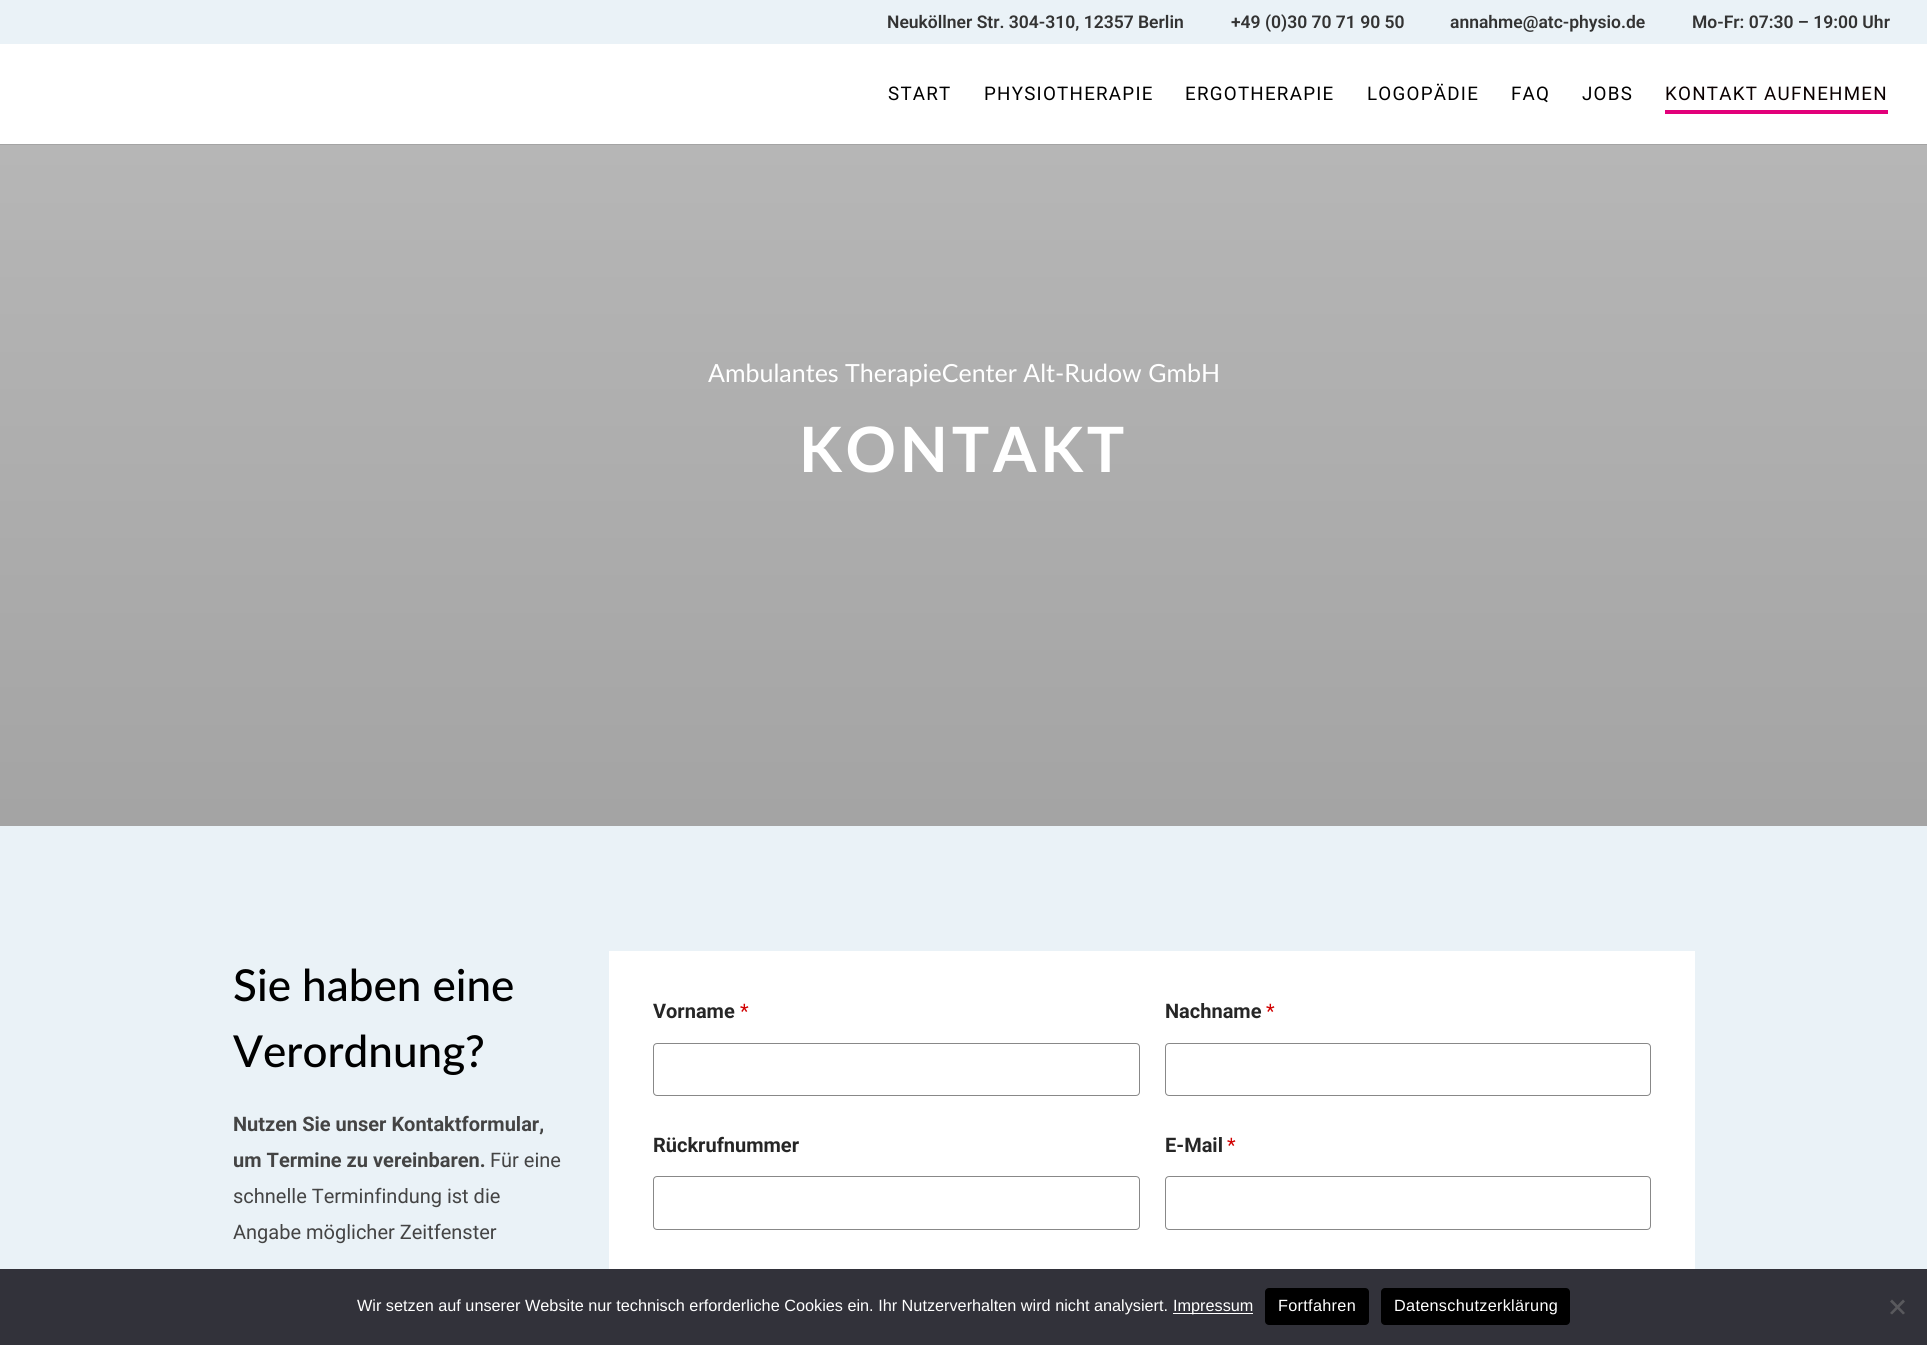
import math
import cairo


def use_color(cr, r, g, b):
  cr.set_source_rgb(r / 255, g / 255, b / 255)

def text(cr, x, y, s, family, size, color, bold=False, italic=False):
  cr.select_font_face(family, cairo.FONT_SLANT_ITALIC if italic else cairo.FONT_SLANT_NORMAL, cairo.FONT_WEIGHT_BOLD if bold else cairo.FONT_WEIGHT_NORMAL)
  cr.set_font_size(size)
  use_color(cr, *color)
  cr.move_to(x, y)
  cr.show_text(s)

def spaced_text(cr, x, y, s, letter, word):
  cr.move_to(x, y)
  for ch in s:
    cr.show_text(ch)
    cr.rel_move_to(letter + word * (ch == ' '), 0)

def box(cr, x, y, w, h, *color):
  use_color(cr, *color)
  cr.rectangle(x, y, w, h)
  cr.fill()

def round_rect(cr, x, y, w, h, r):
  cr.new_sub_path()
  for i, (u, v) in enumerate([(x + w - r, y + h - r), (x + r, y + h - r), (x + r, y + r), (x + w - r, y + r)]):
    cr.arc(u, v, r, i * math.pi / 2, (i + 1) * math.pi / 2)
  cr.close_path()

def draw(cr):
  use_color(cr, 255, 255, 255)
  cr.paint()
  use_color(cr, 164, 164, 164)
  cr.new_path()
  cr.move_to(0, 144)
  cr.line_to(0, 145)
  cr.line_to(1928, 145)
  cr.line_to(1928, 1)
  cr.line_to(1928, 144)
  cr.close_path()
  cr.fill()
  box(cr, 0, 0, 1927, 44, 234, 242, 247)
  box(cr, 1665, 110, 223, 4, 226, 0, 122)
  gradient = cairo.LinearGradient(964, 144, 964, 826)
  gradient.add_color_stop_rgba(0, 0.714, 0.714, 0.714, 1)
  gradient.add_color_stop_rgba(0.99, 0.643, 0.643, 0.643, 1)
  cr.set_source(gradient)
  cr.rectangle(0, 145, 1927, 681)
  cr.fill()
  box(cr, 0, 826, 1927, 443, 234, 242, 247)
  box(cr, 609, 951, 1086, 318, 255, 255, 255)
  round_rect(cr, 653.5, 1043.5, 486, 52, 3.5)
  use_color(cr, 136, 136, 136)
  cr.set_line_width(1)
  cr.stroke()
  round_rect(cr, 1165.5, 1043.5, 485, 52, 3.5)
  cr.stroke()
  round_rect(cr, 653.5, 1176.5, 486, 53, 3.5)
  cr.stroke()
  round_rect(cr, 1165.5, 1176.5, 485, 53, 3.5)
  cr.stroke()
  box(cr, 0, 1269, 1927, 76, 50, 50, 58)
  box(cr, 1173, 1313, 80, 1, 255, 255, 255)
  use_color(cr, 0, 0, 0)
  round_rect(cr, 1265, 1288, 104, 37, 4)
  cr.fill()
  round_rect(cr, 1381, 1288, 189, 37, 4)
  cr.fill()
  use_color(cr, 89, 89, 93)
  cr.new_path()
  cr.move_to(1903, 1299.5)
  cr.line_to(1905, 1301.5)
  cr.line_to(1892, 1314.5)
  cr.line_to(1890, 1313)
  cr.close_path()
  cr.fill()
  cr.new_path()
  cr.move_to(1890, 1301.5)
  cr.line_to(1892, 1299.5)
  cr.line_to(1905, 1313)
  cr.line_to(1903, 1314.5)
  cr.close_path()
  cr.fill()
  text(cr, 887, 28, "Neuköllner Str. 304-310, 12357 Berlin", "Roboto SemiBold", 17.5, (51, 51, 51))
  text(cr, 1231, 28, "+49 (0)30 70 71 90 50", "Roboto SemiBold", 17.5, (51, 51, 51))
  text(cr, 1450, 28, "annahme@atc-physio.de", "Roboto SemiBold", 17.5, (51, 51, 51))
  text(cr, 1692, 28, "Mo-Fr: 07:30 – 19:00 Uhr", "Roboto SemiBold", 17.5, (51, 51, 51))
  cr.select_font_face("Roboto")
  cr.set_font_size(18.75)
  use_color(cr, 0, 0, 0)
  spaced_text(cr, 888, 100, "START", 1.25, 0)
  spaced_text(cr, 984, 100, "PHYSIOTHERAPIE", 1.25, 0)
  spaced_text(cr, 1185, 100, "ERGOTHERAPIE", 1.25, 0)
  spaced_text(cr, 1367, 100, "LOGOPÄDIE", 1.25, 0)
  spaced_text(cr, 1511, 100, "FAQ", 1.25, 0)
  spaced_text(cr, 1582, 100, "JOBS", 1.25, 0)
  use_color(cr, 10, 0, 0)
  spaced_text(cr, 1665, 100, "KONTAKT AUFNEHMEN", 1.25, 0)
  text(cr, 708, 382, "Ambulantes TherapieCenter Alt-Rudow GmbH", "Lato", 25, (255, 255, 255))
  cr.select_font_face("Lato", cairo.FONT_SLANT_NORMAL, cairo.FONT_WEIGHT_BOLD)
  cr.set_font_size(62.5)
  spaced_text(cr, 799, 472, "KONTAKT", 3.75, 0)
  text(cr, 233, 1001, "Sie haben eine", "Lato Medium", 44, (0, 0, 0))
  text(cr, 233, 1067, "Verordnung?", "Lato Medium", 44, (0, 0, 0))
  text(cr, 233, 1131, "Nutzen Sie unser Kontaktformular,", "Roboto", 20, (68, 68, 68), bold=True)
  text(cr, 233, 1167, "um Termine zu vereinbaren.", "Roboto", 20, (68, 68, 68), bold=True)
  text(cr, 490, 1167, "Für eine", "Roboto", 20, (68, 68, 68))
  text(cr, 233, 1203, "schnelle Terminfindung ist die", "Roboto", 20, (68, 68, 68))
  text(cr, 233, 1239, "Angabe möglicher Zeitfenster", "Roboto", 20, (68, 68, 68))
  text(cr, 653, 1018, "Vorname", "Roboto", 20, (38, 38, 38), bold=True)
  text(cr, 740, 1018, "*", "Roboto", 20, (209, 0, 0))
  text(cr, 1165, 1018, "Nachname", "Roboto", 20, (38, 38, 38), bold=True)
  text(cr, 1266, 1018, "*", "Roboto", 20, (209, 0, 0))
  text(cr, 653, 1152, "Rückrufnummer", "Roboto", 20, (38, 38, 38), bold=True)
  text(cr, 1165, 1152, "E-Mail", "Roboto", 20, (38, 38, 38), bold=True)
  text(cr, 1227, 1152, "*", "Roboto", 20, (209, 0, 0))
  text(cr, 357, 1311, "Wir setzen auf unserer Website nur technisch erforderliche Cookies ein. Ihr Nutzerverhalten wird nicht analysiert.", "Liberation Sans", 16.25, (255, 255, 255))
  text(cr, 1173, 1311, "Impressum", "Liberation Sans", 16.25, (255, 255, 255))
  spaced_text(cr, 1278, 1311, "Fortfahren", 0.3, 0)
  spaced_text(cr, 1394, 1311, "Datenschutzerklärung", 0.3, 0)


surface = cairo.ImageSurface(cairo.FORMAT_RGB24, 1927, 1345)
cr = cairo.Context(surface)
options = cairo.FontOptions()
options.set_hint_metrics(cairo.HINT_METRICS_OFF)
options.set_hint_style(cairo.HINT_STYLE_NONE)
cr.set_font_options(options)
cr.set_miter_limit(4)
draw(cr)
surface.write_to_png("out.png")
